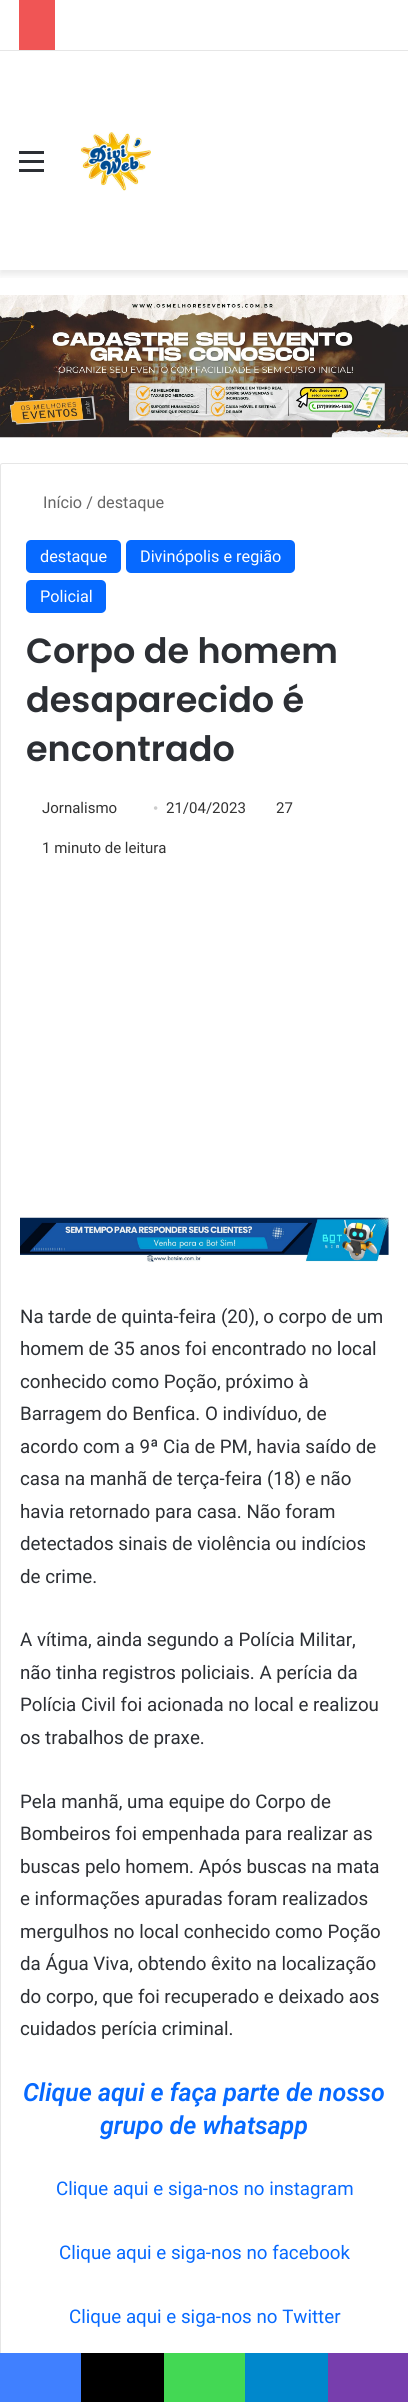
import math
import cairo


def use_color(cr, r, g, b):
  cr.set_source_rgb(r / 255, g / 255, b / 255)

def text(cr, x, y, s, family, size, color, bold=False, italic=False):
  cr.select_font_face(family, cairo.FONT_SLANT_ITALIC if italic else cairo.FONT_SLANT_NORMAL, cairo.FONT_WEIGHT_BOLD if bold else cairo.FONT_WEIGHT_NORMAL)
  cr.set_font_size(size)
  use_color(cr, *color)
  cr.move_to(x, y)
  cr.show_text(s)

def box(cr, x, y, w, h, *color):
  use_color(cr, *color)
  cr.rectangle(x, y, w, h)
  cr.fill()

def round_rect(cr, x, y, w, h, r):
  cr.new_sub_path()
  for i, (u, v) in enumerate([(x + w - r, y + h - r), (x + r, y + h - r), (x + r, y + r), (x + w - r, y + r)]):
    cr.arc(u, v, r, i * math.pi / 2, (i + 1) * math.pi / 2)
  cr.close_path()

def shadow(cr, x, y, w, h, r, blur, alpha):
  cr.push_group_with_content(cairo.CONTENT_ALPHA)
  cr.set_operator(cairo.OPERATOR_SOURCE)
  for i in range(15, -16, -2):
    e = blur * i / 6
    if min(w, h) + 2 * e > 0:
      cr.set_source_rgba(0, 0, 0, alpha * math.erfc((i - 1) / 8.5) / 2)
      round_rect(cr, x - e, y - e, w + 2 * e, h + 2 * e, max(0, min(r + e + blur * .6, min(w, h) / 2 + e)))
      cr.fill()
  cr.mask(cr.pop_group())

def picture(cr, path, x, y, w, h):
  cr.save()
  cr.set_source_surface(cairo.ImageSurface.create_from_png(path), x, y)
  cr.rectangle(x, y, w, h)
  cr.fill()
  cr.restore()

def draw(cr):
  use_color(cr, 255, 255, 255)
  cr.paint()
  cr.save()
  cr.rectangle(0, 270, 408, 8)
  cr.clip()
  use_color(cr, 0, 0, 0)
  shadow(cr, 0, 55, 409, 219, 0, 4.5, 0.1)
  cr.restore()
  box(cr, 6, 49, 397, 1, 255, 255, 255)
  box(cr, 0, 50, 408, 1, 230, 230, 230)
  box(cr, 19, 0, 36, 50, 240, 85, 85)
  box(cr, 19, 160, 25, 3, 44, 47, 52)
  box(cr, 19, 151, 25, 3, 44, 47, 52)
  box(cr, 19, 169, 25, 3, 44, 47, 52)
  picture(cr, "img_01.png", 80, 132, 71, 59)
  picture(cr, "img_02.png", 0, 295, 408, 143)
  round_rect(cr, 0.5, 463.5, 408, 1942, 2)
  use_color(cr, 230, 230, 230)
  cr.set_line_width(1)
  cr.stroke()
  use_color(cr, 6, 105, 255)
  round_rect(cr, 26, 540, 95, 33, 5)
  cr.fill()
  round_rect(cr, 126, 540, 169, 33, 5)
  cr.fill()
  round_rect(cr, 26, 580, 80, 33, 5)
  cr.fill()
  picture(cr, "img_03.png", 20, 1217, 369, 45)
  box(cr, 0, 2353, 81, 49, 64, 128, 255)
  box(cr, 81, 2353, 83, 49, 0, 0, 0)
  box(cr, 164, 2353, 81, 49, 67, 216, 84)
  box(cr, 245, 2353, 83, 49, 0, 136, 204)
  box(cr, 328, 2353, 80, 49, 119, 62, 173)
  text(cr, 43, 508, "Início / destaque", "Roboto", 16.25, (102, 102, 102))
  text(cr, 40, 562, "destaque", "Roboto", 16.25, (255, 255, 255))
  text(cr, 140, 562, "Divinópolis e região", "Roboto", 16.25, (255, 255, 255))
  text(cr, 40, 602, "Policial", "Roboto", 16.25, (255, 255, 255))
  text(cr, 26, 663, "Corpo de homem", "Poppins SemiBold", 35, (44, 47, 52))
  text(cr, 26, 712, "desaparecido é", "Poppins SemiBold", 35, (44, 47, 52))
  text(cr, 26, 761, "encontrado", "Poppins SemiBold", 35, (44, 47, 52))
  text(cr, 42, 813, "Jornalismo", "Roboto", 15, (51, 51, 51))
  text(cr, 276, 813, "27", "Roboto", 15, (51, 51, 51))
  text(cr, 42, 853, "1 minuto de leitura", "Roboto", 15, (51, 51, 51))
  text(cr, 153, 813, "•", "Liberation Serif", 15, (204, 204, 204))
  text(cr, 166, 813, "21/04/2023", "Roboto", 15, (51, 51, 51))
  text(cr, 20, 1323, "Na tarde de quinta-feira (20), o corpo de um", "Roboto", 18.75, (44, 47, 52))
  text(cr, 20, 1355, "homem de 35 anos foi encontrado no local", "Roboto", 18.75, (44, 47, 52))
  text(cr, 20, 1388, "conhecido como Poção, próximo à", "Roboto", 18.75, (44, 47, 52))
  text(cr, 20, 1420, "Barragem do Benfica. O indivíduo, de", "Roboto", 18.75, (44, 47, 52))
  text(cr, 20, 1453, "acordo com a 9ª Cia de PM, havia saído de", "Roboto", 18.75, (44, 47, 52))
  text(cr, 20, 1485, "casa na manhã de terça-feira (18) e não", "Roboto", 18.75, (44, 47, 52))
  text(cr, 20, 1518, "havia retornado para casa. Não foram", "Roboto", 18.75, (44, 47, 52))
  text(cr, 20, 1550, "detectados sinais de violência ou indícios", "Roboto", 18.75, (44, 47, 52))
  text(cr, 20, 1583, "de crime.", "Roboto", 18.75, (44, 47, 52))
  text(cr, 20, 1646, "A vítima, ainda segundo a Polícia Militar,", "Roboto", 18.75, (44, 47, 52))
  text(cr, 20, 1679, "não tinha registros policiais. A perícia da", "Roboto", 18.75, (44, 47, 52))
  text(cr, 20, 1711, "Polícia Civil foi acionada no local e realizou", "Roboto", 18.75, (44, 47, 52))
  text(cr, 20, 1744, "os trabalhos de praxe.", "Roboto", 18.75, (44, 47, 52))
  text(cr, 20, 1808, "Pela manhã, uma equipe do Corpo de", "Roboto", 18.75, (44, 47, 52))
  text(cr, 20, 1840, "Bombeiros foi empenhada para realizar as", "Roboto", 18.75, (44, 47, 52))
  text(cr, 20, 1873, "buscas pelo homem. Após buscas na mata", "Roboto", 18.75, (44, 47, 52))
  text(cr, 20, 1905, "e informações apuradas foram realizados", "Roboto", 18.75, (44, 47, 52))
  text(cr, 20, 1938, "mergulhos no local conhecido como Poção", "Roboto", 18.75, (44, 47, 52))
  text(cr, 20, 1970, "da Água Viva, obtendo êxito na localização", "Roboto", 18.75, (44, 47, 52))
  text(cr, 20, 2003, "do corpo, que foi recuperado e deixado aos", "Roboto", 18.75, (44, 47, 52))
  text(cr, 20, 2035, "cuidados perícia criminal.", "Roboto", 18.75, (44, 47, 52))
  text(cr, 23, 2101, "Clique aqui e faça parte de nosso", "Roboto SemiBold", 25, (6, 105, 255), italic=True)
  text(cr, 100, 2134, "grupo de whatsapp", "Roboto SemiBold", 25, (6, 105, 255), italic=True)
  text(cr, 56, 2195, "Clique aqui e siga-nos no instagram", "Roboto", 18.75, (6, 105, 255))
  text(cr, 59, 2259, "Clique aqui e siga-nos no facebook", "Roboto", 18.75, (6, 105, 255))
  text(cr, 69, 2323, "Clique aqui e siga-nos no Twitter", "Roboto", 18.75, (6, 105, 255))


surface = cairo.ImageSurface(cairo.FORMAT_RGB24, 408, 2402)
cr = cairo.Context(surface)
options = cairo.FontOptions()
options.set_hint_metrics(cairo.HINT_METRICS_OFF)
options.set_hint_style(cairo.HINT_STYLE_NONE)
cr.set_font_options(options)
cr.set_miter_limit(4)
draw(cr)
surface.write_to_png("out.png")
